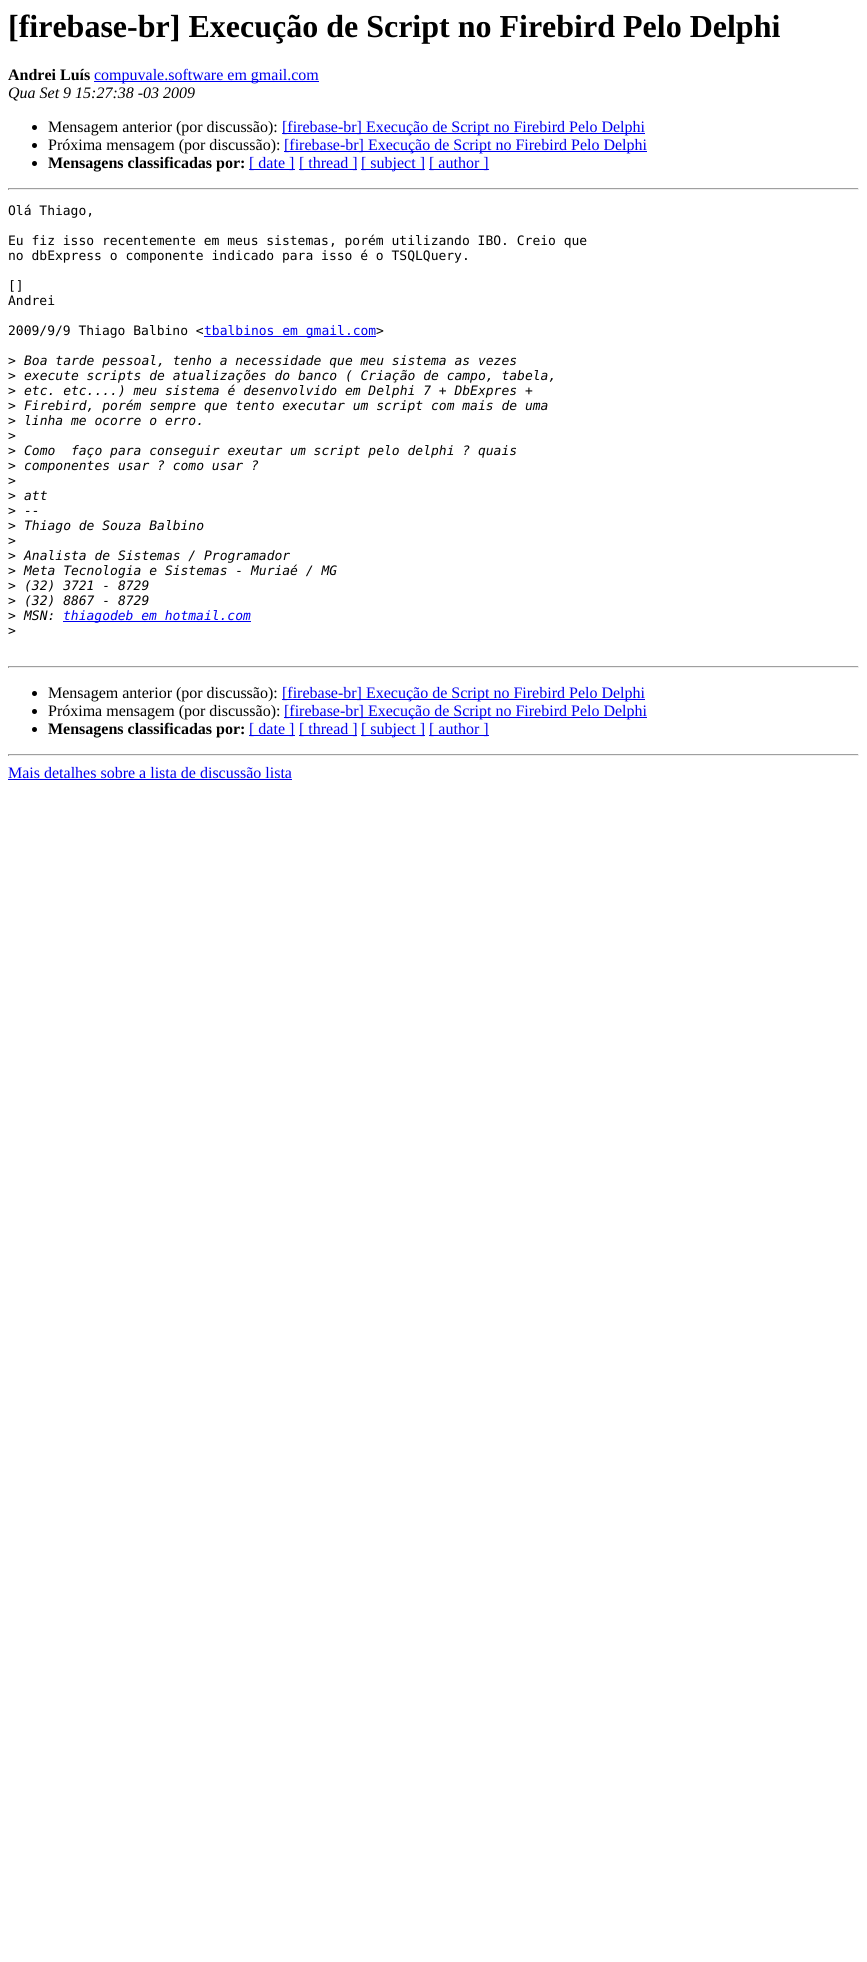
import math
import cairo


def use_color(cr, r, g, b):
  cr.set_source_rgb(r / 255, g / 255, b / 255)

def text(cr, x, y, s, family, size, color, bold=False, italic=False):
  cr.select_font_face(family, cairo.FONT_SLANT_ITALIC if italic else cairo.FONT_SLANT_NORMAL, cairo.FONT_WEIGHT_BOLD if bold else cairo.FONT_WEIGHT_NORMAL)
  cr.set_font_size(size)
  use_color(cr, *color)
  cr.move_to(x, y)
  cr.show_text(s)

def box(cr, x, y, w, h, *color):
  use_color(cr, *color)
  cr.rectangle(x, y, w, h)
  cr.fill()

def draw(cr):
  use_color(cr, 255, 255, 255)
  cr.paint()
  box(cr, 94, 81, 225, 1, 0, 0, 238)
  use_color(cr, 0, 0, 0)
  cr.arc(34.5, 127.5, 2.5, 0, 2 * math.pi)
  cr.fill()
  box(cr, 282, 133, 363, 1, 0, 0, 238)
  use_color(cr, 0, 0, 0)
  cr.arc(34.5, 145.5, 2.5, 0, 2 * math.pi)
  cr.fill()
  box(cr, 284, 151, 363, 1, 0, 0, 238)
  use_color(cr, 0, 0, 0)
  cr.arc(34.5, 163.5, 2.5, 0, 2 * math.pi)
  cr.fill()
  box(cr, 249, 169, 46, 1, 0, 0, 238)
  box(cr, 299, 169, 58, 1, 0, 0, 238)
  box(cr, 361, 169, 64, 1, 0, 0, 238)
  box(cr, 429, 169, 60, 1, 0, 0, 238)
  box(cr, 8, 188, 851, 1, 159, 159, 159)
  box(cr, 858, 188, 1, 2, 238, 238, 238)
  box(cr, 8, 189, 851, 1, 238, 238, 238)
  box(cr, 8, 188, 1, 2, 159, 159, 159)
  box(cr, 204, 336, 172, 1, 0, 0, 238)
  box(cr, 63, 621, 188, 1, 0, 0, 238)
  box(cr, 8, 666, 851, 1, 159, 159, 159)
  box(cr, 858, 666, 1, 2, 238, 238, 238)
  box(cr, 8, 667, 851, 1, 238, 238, 238)
  box(cr, 8, 666, 1, 2, 159, 159, 159)
  use_color(cr, 0, 0, 0)
  cr.arc(34.5, 693.5, 2.5, 0, 2 * math.pi)
  cr.fill()
  box(cr, 282, 699, 363, 1, 0, 0, 238)
  use_color(cr, 0, 0, 0)
  cr.arc(34.5, 711.5, 2.5, 0, 2 * math.pi)
  cr.fill()
  box(cr, 284, 717, 363, 1, 0, 0, 238)
  use_color(cr, 0, 0, 0)
  cr.arc(34.5, 729.5, 2.5, 0, 2 * math.pi)
  cr.fill()
  box(cr, 249, 735, 46, 1, 0, 0, 238)
  box(cr, 299, 735, 58, 1, 0, 0, 238)
  box(cr, 361, 735, 64, 1, 0, 0, 238)
  box(cr, 429, 735, 60, 1, 0, 0, 238)
  box(cr, 8, 754, 851, 1, 159, 159, 159)
  box(cr, 858, 754, 1, 2, 238, 238, 238)
  box(cr, 8, 755, 851, 1, 238, 238, 238)
  box(cr, 8, 754, 1, 2, 159, 159, 159)
  box(cr, 8, 779, 284, 1, 0, 0, 238)
  text(cr, 8, 37, "[firebase-br] Execução de Script no Firebird Pelo Delphi", "Liberation Serif", 32, (0, 0, 0), bold=True)
  text(cr, 8, 80, "Andrei Luís", "Liberation Serif", 16, (0, 0, 0), bold=True)
  text(cr, 94, 80, "compuvale.software em gmail.com", "Liberation Serif", 16, (0, 0, 238))
  text(cr, 8, 98, "Qua Set 9 15:27:38 -03 2009", "Liberation Serif", 16, (0, 0, 0), italic=True)
  text(cr, 48, 132, "Mensagem anterior (por discussão):", "Liberation Serif", 16, (0, 0, 0))
  text(cr, 282, 132, "[firebase-br] Execução de Script no Firebird Pelo Delphi", "Liberation Serif", 16, (0, 0, 238))
  text(cr, 48, 150, "Próxima mensagem (por discussão):", "Liberation Serif", 16, (0, 0, 0))
  text(cr, 284, 150, "[firebase-br] Execução de Script no Firebird Pelo Delphi", "Liberation Serif", 16, (0, 0, 238))
  text(cr, 48, 168, "Mensagens classificadas por:", "Liberation Serif", 16, (0, 0, 0), bold=True)
  text(cr, 249, 168, "[ date ]", "Liberation Serif", 16, (0, 0, 238))
  text(cr, 299, 168, "[ thread ]", "Liberation Serif", 16, (0, 0, 238))
  text(cr, 361, 168, "[ subject ]", "Liberation Serif", 16, (0, 0, 238))
  text(cr, 429, 168, "[ author ]", "Liberation Serif", 16, (0, 0, 238))
  text(cr, 8, 215, "Olá Thiago,", "DejaVu Sans Mono", 13, (0, 0, 0))
  text(cr, 8, 245, "Eu fiz isso recentemente em meus sistemas, porém utilizando IBO. Creio que", "DejaVu Sans Mono", 13, (0, 0, 0))
  text(cr, 8, 260, "no dbExpress o componente indicado para isso é o TSQLQuery.", "DejaVu Sans Mono", 13, (0, 0, 0))
  text(cr, 8, 290, "[]", "DejaVu Sans Mono", 13, (0, 0, 0))
  text(cr, 8, 305, "Andrei", "DejaVu Sans Mono", 13, (0, 0, 0))
  text(cr, 8, 335, "2009/9/9 Thiago Balbino <", "DejaVu Sans Mono", 13, (0, 0, 0))
  text(cr, 204, 335, "tbalbinos em gmail.com", "DejaVu Sans Mono", 13, (0, 0, 238))
  text(cr, 376, 335, ">", "DejaVu Sans Mono", 13, (0, 0, 0))
  text(cr, 8, 365, ">", "DejaVu Sans Mono", 13, (0, 0, 0))
  text(cr, 24, 365, "Boa tarde pessoal, tenho a necessidade que meu sistema as vezes", "DejaVu Sans Mono", 13, (0, 0, 0), italic=True)
  text(cr, 8, 380, ">", "DejaVu Sans Mono", 13, (0, 0, 0))
  text(cr, 24, 380, "execute scripts de atualizações do banco ( Criação de campo, tabela,", "DejaVu Sans Mono", 13, (0, 0, 0), italic=True)
  text(cr, 8, 395, ">", "DejaVu Sans Mono", 13, (0, 0, 0))
  text(cr, 24, 395, "etc. etc....) meu sistema é desenvolvido em Delphi 7 + DbExpres +", "DejaVu Sans Mono", 13, (0, 0, 0), italic=True)
  text(cr, 8, 410, ">", "DejaVu Sans Mono", 13, (0, 0, 0))
  text(cr, 24, 410, "Firebird, porém sempre que tento executar um script com mais de uma", "DejaVu Sans Mono", 13, (0, 0, 0), italic=True)
  text(cr, 8, 425, ">", "DejaVu Sans Mono", 13, (0, 0, 0))
  text(cr, 24, 425, "linha me ocorre o erro.", "DejaVu Sans Mono", 13, (0, 0, 0), italic=True)
  text(cr, 8, 440, ">", "DejaVu Sans Mono", 13, (0, 0, 0))
  text(cr, 8, 455, ">", "DejaVu Sans Mono", 13, (0, 0, 0))
  text(cr, 24, 455, "Como  faço para conseguir exeutar um script pelo delphi ? quais", "DejaVu Sans Mono", 13, (0, 0, 0), italic=True)
  text(cr, 8, 470, ">", "DejaVu Sans Mono", 13, (0, 0, 0))
  text(cr, 24, 470, "componentes usar ? como usar ?", "DejaVu Sans Mono", 13, (0, 0, 0), italic=True)
  text(cr, 8, 485, ">", "DejaVu Sans Mono", 13, (0, 0, 0))
  text(cr, 8, 500, ">", "DejaVu Sans Mono", 13, (0, 0, 0))
  text(cr, 24, 500, "att", "DejaVu Sans Mono", 13, (0, 0, 0), italic=True)
  text(cr, 8, 515, ">", "DejaVu Sans Mono", 13, (0, 0, 0))
  text(cr, 24, 515, "--", "DejaVu Sans Mono", 13, (0, 0, 0), italic=True)
  text(cr, 8, 530, ">", "DejaVu Sans Mono", 13, (0, 0, 0))
  text(cr, 24, 530, "Thiago de Souza Balbino", "DejaVu Sans Mono", 13, (0, 0, 0), italic=True)
  text(cr, 8, 545, ">", "DejaVu Sans Mono", 13, (0, 0, 0))
  text(cr, 8, 560, ">", "DejaVu Sans Mono", 13, (0, 0, 0))
  text(cr, 24, 560, "Analista de Sistemas / Programador", "DejaVu Sans Mono", 13, (0, 0, 0), italic=True)
  text(cr, 8, 575, ">", "DejaVu Sans Mono", 13, (0, 0, 0))
  text(cr, 24, 575, "Meta Tecnologia e Sistemas - Muriaé / MG", "DejaVu Sans Mono", 13, (0, 0, 0), italic=True)
  text(cr, 8, 590, ">", "DejaVu Sans Mono", 13, (0, 0, 0))
  text(cr, 24, 590, "(32) 3721 - 8729", "DejaVu Sans Mono", 13, (0, 0, 0), italic=True)
  text(cr, 8, 605, ">", "DejaVu Sans Mono", 13, (0, 0, 0))
  text(cr, 24, 605, "(32) 8867 - 8729", "DejaVu Sans Mono", 13, (0, 0, 0), italic=True)
  text(cr, 8, 620, ">", "DejaVu Sans Mono", 13, (0, 0, 0))
  text(cr, 24, 620, "MSN:", "DejaVu Sans Mono", 13, (0, 0, 0), italic=True)
  text(cr, 63, 620, "thiagodeb em hotmail.com", "DejaVu Sans Mono", 13, (0, 0, 238), italic=True)
  text(cr, 8, 635, ">", "DejaVu Sans Mono", 13, (0, 0, 0))
  text(cr, 48, 698, "Mensagem anterior (por discussão):", "Liberation Serif", 16, (0, 0, 0))
  text(cr, 282, 698, "[firebase-br] Execução de Script no Firebird Pelo Delphi", "Liberation Serif", 16, (0, 0, 238))
  text(cr, 48, 716, "Próxima mensagem (por discussão):", "Liberation Serif", 16, (0, 0, 0))
  text(cr, 284, 716, "[firebase-br] Execução de Script no Firebird Pelo Delphi", "Liberation Serif", 16, (0, 0, 238))
  text(cr, 48, 734, "Mensagens classificadas por:", "Liberation Serif", 16, (0, 0, 0), bold=True)
  text(cr, 249, 734, "[ date ]", "Liberation Serif", 16, (0, 0, 238))
  text(cr, 299, 734, "[ thread ]", "Liberation Serif", 16, (0, 0, 238))
  text(cr, 361, 734, "[ subject ]", "Liberation Serif", 16, (0, 0, 238))
  text(cr, 429, 734, "[ author ]", "Liberation Serif", 16, (0, 0, 238))
  text(cr, 8, 778, "Mais detalhes sobre a lista de discussão lista", "Liberation Serif", 16, (0, 0, 238))


surface = cairo.ImageSurface(cairo.FORMAT_RGB24, 867, 1962)
cr = cairo.Context(surface)
options = cairo.FontOptions()
options.set_hint_metrics(cairo.HINT_METRICS_OFF)
options.set_hint_style(cairo.HINT_STYLE_NONE)
cr.set_font_options(options)
cr.set_miter_limit(4)
draw(cr)
surface.write_to_png("out.png")
